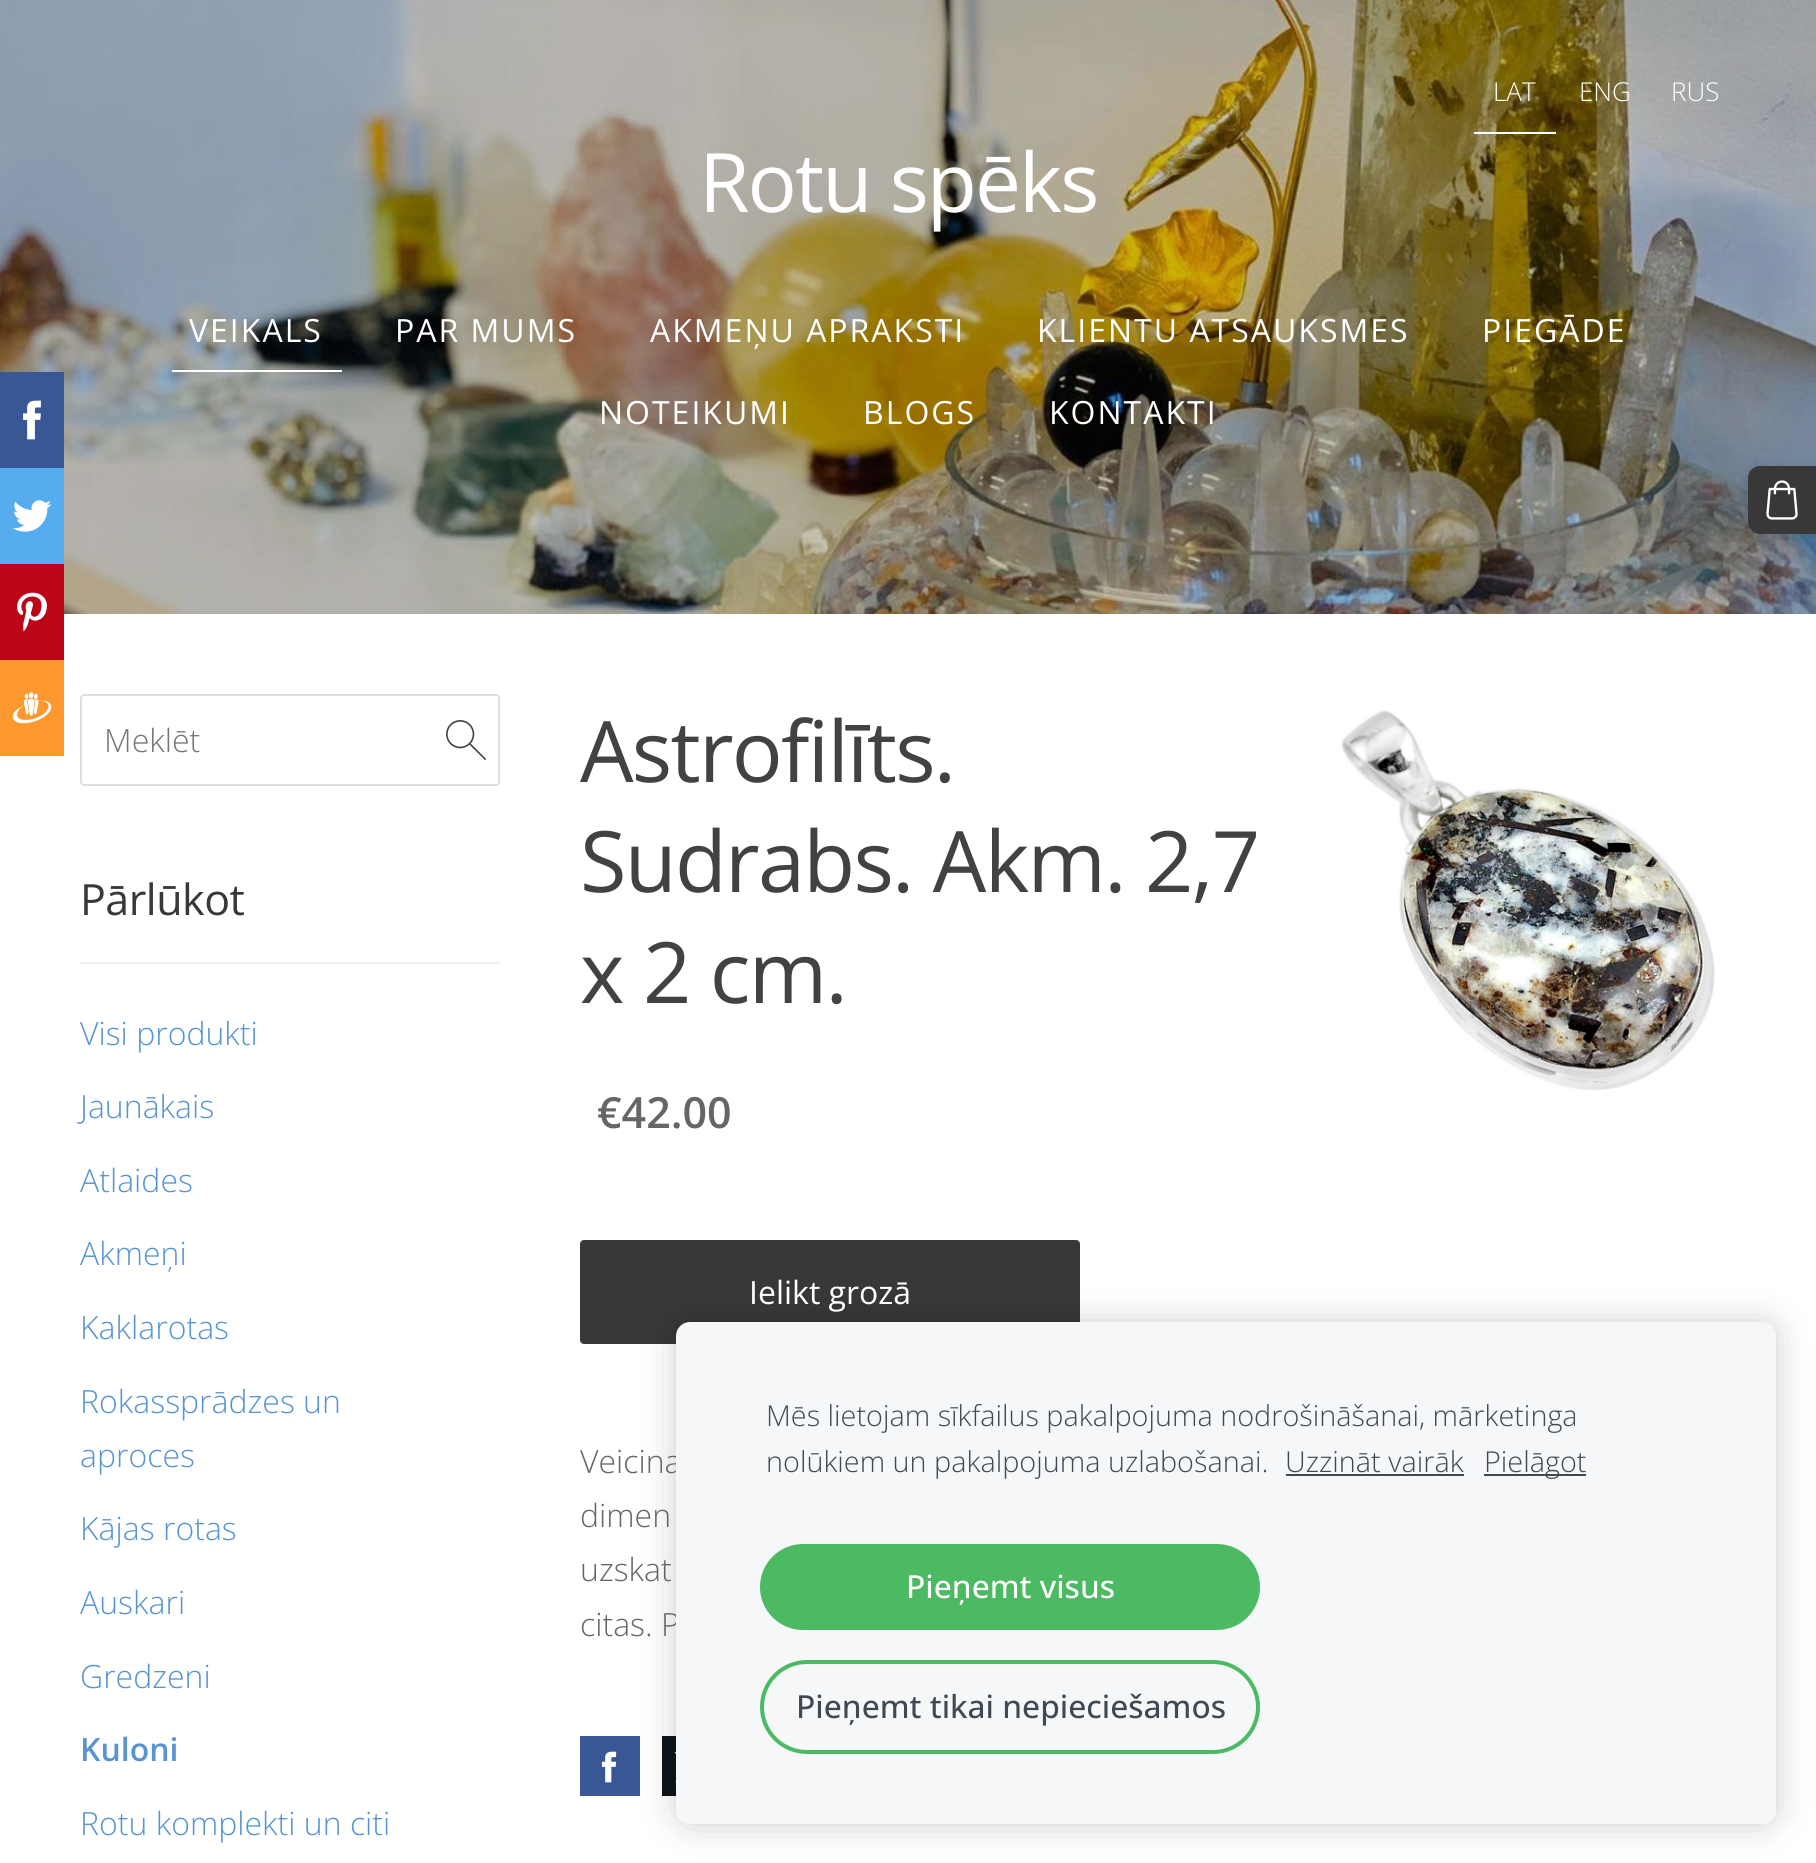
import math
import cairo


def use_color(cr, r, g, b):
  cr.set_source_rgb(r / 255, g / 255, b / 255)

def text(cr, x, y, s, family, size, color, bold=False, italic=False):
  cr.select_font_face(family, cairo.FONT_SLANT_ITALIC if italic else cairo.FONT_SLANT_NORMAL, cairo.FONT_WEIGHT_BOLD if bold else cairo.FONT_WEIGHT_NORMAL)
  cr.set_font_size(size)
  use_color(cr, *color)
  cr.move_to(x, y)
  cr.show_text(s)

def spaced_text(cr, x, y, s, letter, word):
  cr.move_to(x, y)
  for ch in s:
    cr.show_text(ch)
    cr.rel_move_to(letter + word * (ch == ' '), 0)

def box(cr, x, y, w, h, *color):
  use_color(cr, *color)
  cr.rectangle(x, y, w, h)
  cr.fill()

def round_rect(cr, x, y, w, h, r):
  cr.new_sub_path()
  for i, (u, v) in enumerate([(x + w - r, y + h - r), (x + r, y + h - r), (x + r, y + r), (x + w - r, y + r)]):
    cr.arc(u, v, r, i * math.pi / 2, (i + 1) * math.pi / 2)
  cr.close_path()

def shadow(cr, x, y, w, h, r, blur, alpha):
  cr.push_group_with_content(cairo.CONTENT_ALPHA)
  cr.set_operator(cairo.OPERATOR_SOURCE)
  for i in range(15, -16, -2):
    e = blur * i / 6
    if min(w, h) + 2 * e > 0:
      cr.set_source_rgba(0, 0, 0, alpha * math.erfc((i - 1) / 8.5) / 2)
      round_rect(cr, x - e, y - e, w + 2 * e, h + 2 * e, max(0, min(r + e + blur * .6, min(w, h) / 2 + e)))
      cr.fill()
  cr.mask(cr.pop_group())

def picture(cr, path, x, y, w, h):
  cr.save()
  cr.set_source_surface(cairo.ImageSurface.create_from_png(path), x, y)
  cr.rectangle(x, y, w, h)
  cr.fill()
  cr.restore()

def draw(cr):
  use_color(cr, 255, 255, 255)
  cr.paint()
  picture(cr, "img_05.png", 0, 0, 1816, 614)
  box(cr, 0, 372, 64, 96, 58, 87, 149)
  picture(cr, "img_01.png", 23, 400, 18, 40)
  box(cr, 0, 468, 64, 96, 85, 172, 238)
  picture(cr, "img_02.png", 12, 500, 40, 32)
  box(cr, 0, 564, 64, 96, 188, 6, 24)
  picture(cr, "img_03.png", 17, 592, 30, 40)
  box(cr, 0, 660, 64, 96, 254, 151, 45)
  picture(cr, "img_04.png", 12, 692, 40, 32)
  box(cr, 1474, 132, 82, 2, 255, 255, 255)
  box(cr, 172, 370, 170, 2, 255, 255, 255)
  use_color(cr, 0, 0, 0)
  shadow(cr, 1742, 464, 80, 80, 18, 5, 0.1)
  use_color(cr, 56, 56, 56)
  cr.new_path()
  cr.move_to(1760, 466)
  cr.line_to(1816, 466)
  cr.line_to(1816, 534)
  cr.line_to(1760, 534)
  cr.curve_to(1753.5, 534, 1748, 528.5, 1748, 522)
  cr.line_to(1748, 478)
  cr.curve_to(1748, 471.5, 1753.5, 466, 1760, 466)
  cr.close_path()
  cr.fill()
  picture(cr, "img_06.png", 1766, 480, 32, 40)
  round_rect(cr, 81, 695, 418, 90, 3)
  use_color(cr, 221, 221, 221)
  cr.stroke()
  picture(cr, "img_07.png", 446, 720, 40, 40)
  box(cr, 80, 962, 420, 2, 238, 238, 238)
  use_color(cr, 56, 56, 56)
  round_rect(cr, 580, 1240, 500, 104, 4)
  cr.fill()
  box(cr, 580, 1736, 60, 60, 58, 87, 149)
  picture(cr, "img_08.png", 601, 1751, 16, 32)
  box(cr, 662, 1736, 14, 60, 15, 20, 25)
  picture(cr, "img_09.png", 674, 1752, 2, 30)
  picture(cr, "img_10.png", 1341, 710, 374, 381)
  use_color(cr, 0, 0, 0)
  shadow(cr, 676, 1322, 1100, 502, 14, 17, 0.2)
  text(cr, 1493, 101, "LAT", "Open Sans Light", 26, (255, 255, 255))
  text(cr, 1579, 101, "ENG", "Open Sans Light", 26, (255, 255, 255))
  text(cr, 1671, 101, "RUS", "Open Sans Light", 26, (255, 255, 255))
  cr.select_font_face("Open Sans")
  cr.set_font_size(82)
  spaced_text(cr, 699, 212, "Rotu spēks", -2, 0)
  cr.set_font_size(32)
  spaced_text(cr, 189, 342, "VEIKALS", 2, 0)
  spaced_text(cr, 395, 342, "PAR MUMS", 2, 0)
  spaced_text(cr, 650, 342, "AKMEŅU APRAKSTI", 2, 0)
  spaced_text(cr, 1037, 342, "KLIENTU ATSAUKSMES", 2, 0)
  spaced_text(cr, 1482, 342, "PIEGĀDE", 2, 0)
  spaced_text(cr, 599, 424, "NOTEIKUMI", 2, 0)
  spaced_text(cr, 863, 424, "BLOGS", 2, 0)
  spaced_text(cr, 1049, 424, "KONTAKTI", 2, 0)
  text(cr, 104, 752, "Meklēt", "Open Sans Light", 32, (117, 117, 117))
  cr.select_font_face("Open Sans")
  cr.set_font_size(43)
  use_color(cr, 56, 56, 56)
  spaced_text(cr, 80, 915, "Pārlūkot", -0.5, 0)
  text(cr, 80, 1045, "Visi produkti", "Open Sans Light", 32, (86, 148, 210))
  text(cr, 80, 1118, "Jaunākais", "Open Sans Light", 32, (86, 148, 210))
  text(cr, 80, 1192, "Atlaides", "Open Sans Light", 32, (86, 148, 210))
  text(cr, 80, 1265, "Akmeņi", "Open Sans Light", 32, (86, 148, 210))
  text(cr, 80, 1339, "Kaklarotas", "Open Sans Light", 32, (86, 148, 210))
  text(cr, 80, 1413, "Rokassprādzes un", "Open Sans Light", 32, (86, 148, 210))
  text(cr, 80, 1467, "aproces", "Open Sans Light", 32, (86, 148, 210))
  text(cr, 80, 1540, "Kājas rotas", "Open Sans Light", 32, (86, 148, 210))
  text(cr, 80, 1614, "Auskari", "Open Sans Light", 32, (86, 148, 210))
  text(cr, 80, 1688, "Gredzeni", "Open Sans Light", 32, (86, 148, 210))
  text(cr, 80, 1761, "Kuloni", "Open Sans SemiBold", 32, (86, 148, 210))
  text(cr, 80, 1835, "Rotu komplekti un citi", "Open Sans Light", 32, (86, 148, 210))
  cr.select_font_face("Open Sans")
  cr.set_font_size(84.75)
  use_color(cr, 66, 66, 66)
  spaced_text(cr, 580, 782, "Astrofilīts.", -1.75, 0)
  spaced_text(cr, 580, 892, "Sudrabs. Akm. 2,7", -1.75, 0)
  spaced_text(cr, 580, 1003, "x 2 cm.", -1.75, 0)
  text(cr, 597, 1128, "€42.00", "Open Sans SemiBold", 43, (102, 102, 102))
  text(cr, 749, 1304, "Ielikt grozā", "Open Sans", 32, (255, 255, 255))
  cr.select_font_face("Open Sans Light")
  use_color(cr, 102, 102, 102)
  spaced_text(cr, 580, 1473, "Veicina", 0, 4)
  spaced_text(cr, 580, 1527, "dimen", 0, 3)
  spaced_text(cr, 580, 1581, "uzskat", 0, 3)
  text(cr, 580, 1636, "citas. P", "Open Sans Light", 32, (102, 102, 102))
  use_color(cr, 246, 247, 249)
  round_rect(cr, 676, 1322, 1100, 502, 14)
  cr.fill()
  text(cr, 766, 1426, "Mēs lietojam sīkfailus pakalpojuma nodrošināšanai, mārketinga", "Open Sans Light", 28.8, (63, 73, 84))
  text(cr, 766, 1472, "nolūkiem un pakalpojuma uzlabošanai.", "Open Sans Light", 28.8, (63, 73, 84))
  text(cr, 1285, 1472, "Uzzināt vairāk", "Open Sans Light", 28.8, (63, 73, 84))
  box(cr, 1286, 1474, 178, 2, 63, 73, 84)
  box(cr, 1484, 1474, 102, 2, 63, 73, 84)
  text(cr, 1484, 1472, "Pielāgot", "Open Sans Light", 28.8, (63, 73, 84))
  use_color(cr, 76, 185, 99)
  round_rect(cr, 760, 1544, 500, 86, 43)
  cr.fill()
  text(cr, 906, 1598, "Pieņemt visus", "Open Sans Medium", 31.75, (255, 255, 255))
  round_rect(cr, 762, 1662, 496, 90, 45)
  use_color(cr, 76, 185, 99)
  cr.set_line_width(4)
  cr.stroke()
  text(cr, 796, 1718, "Pieņemt tikai nepieciešamos", "Open Sans Medium", 31.75, (63, 73, 84))


surface = cairo.ImageSurface(cairo.FORMAT_RGB24, 1816, 1863)
cr = cairo.Context(surface)
options = cairo.FontOptions()
options.set_hint_metrics(cairo.HINT_METRICS_OFF)
options.set_hint_style(cairo.HINT_STYLE_NONE)
cr.set_font_options(options)
cr.set_miter_limit(4)
draw(cr)
surface.write_to_png("out.png")
